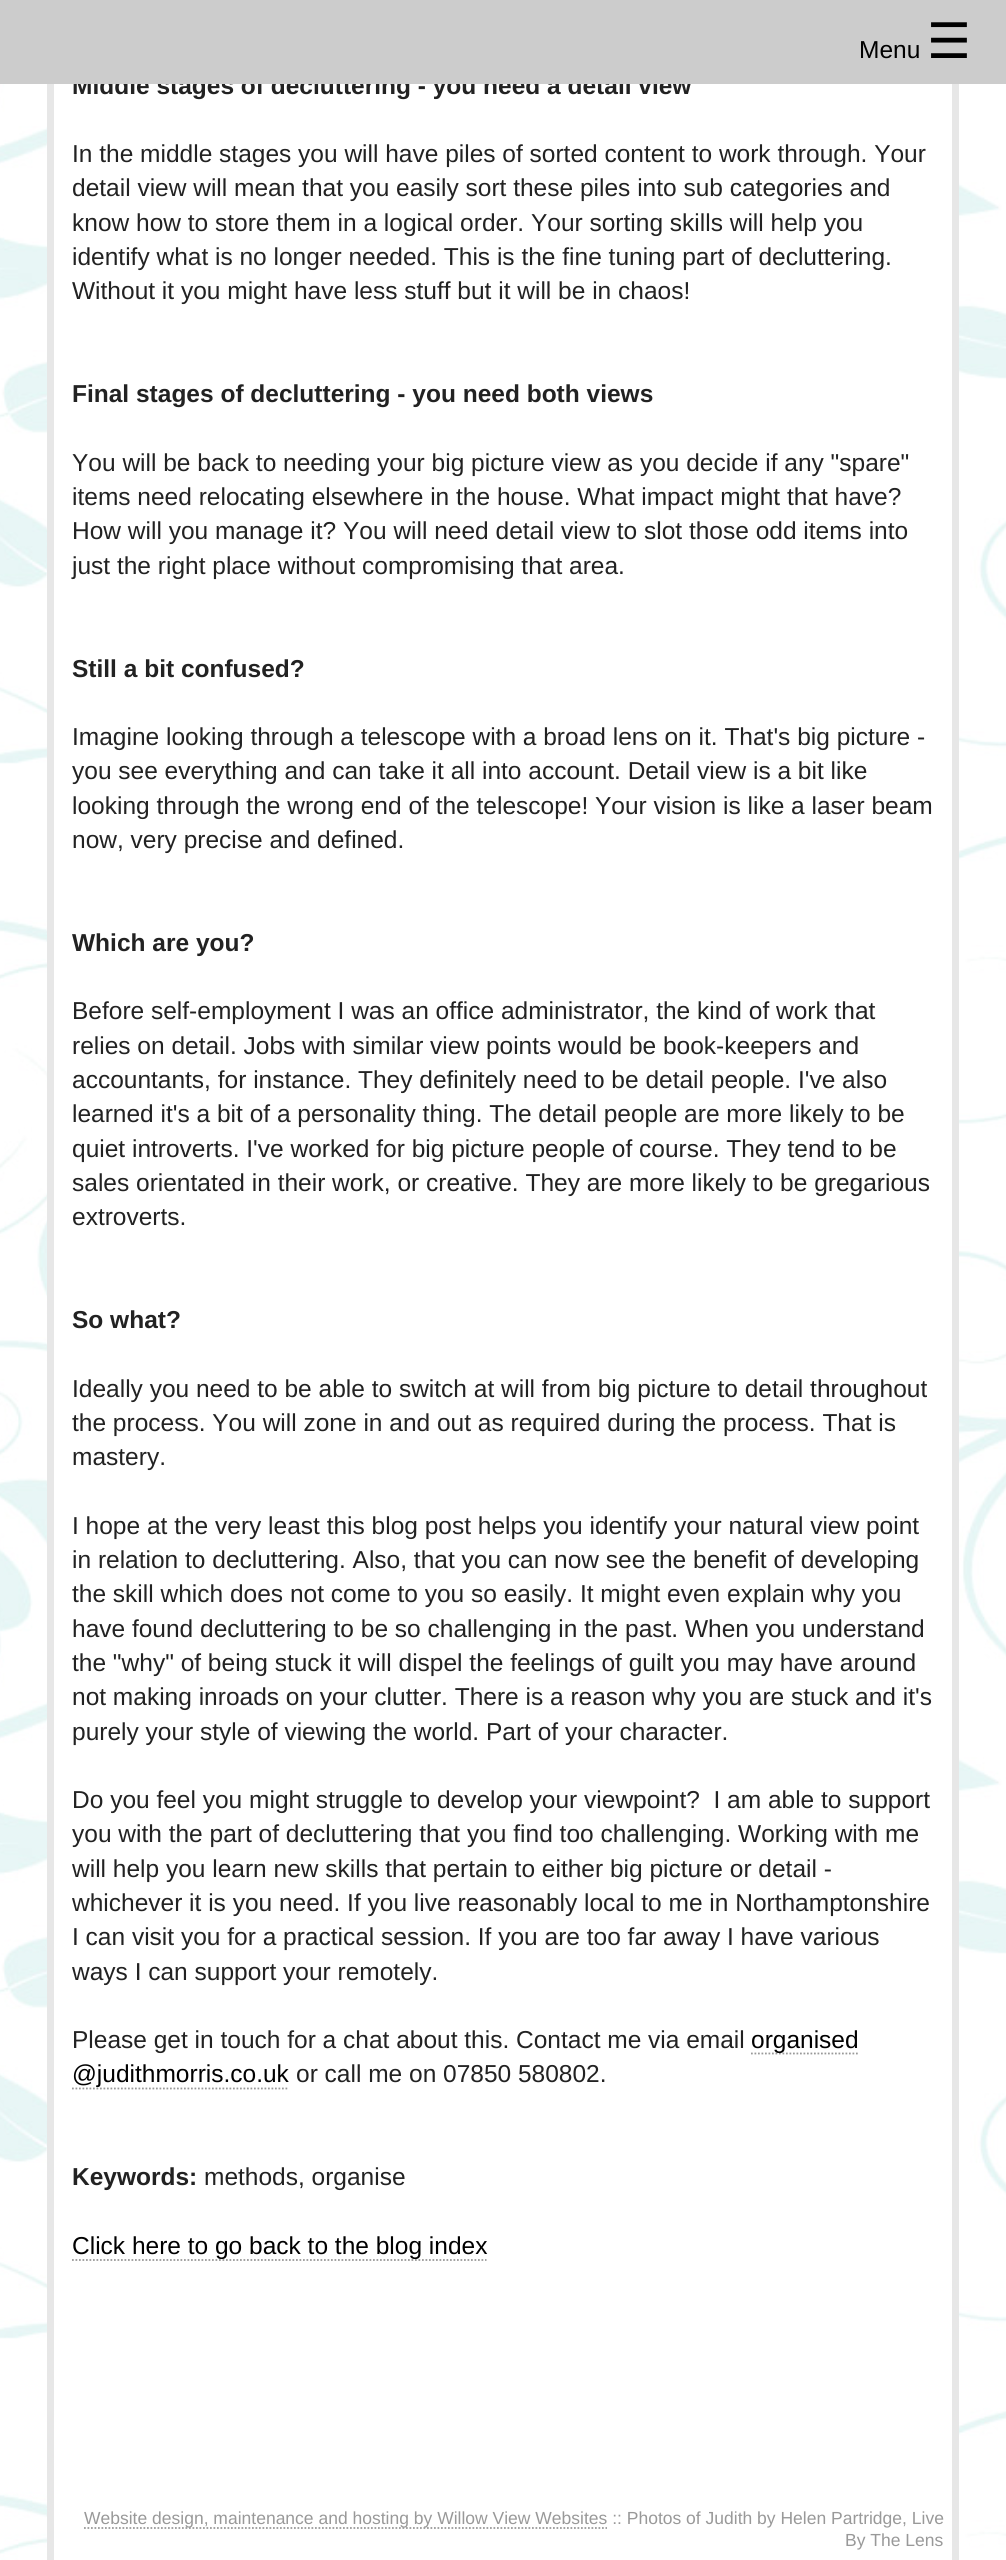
import math
import cairo


def use_color(cr, r, g, b):
  cr.set_source_rgb(r / 255, g / 255, b / 255)

def text(cr, x, y, s, family, size, color, bold=False, italic=False):
  cr.select_font_face(family, cairo.FONT_SLANT_ITALIC if italic else cairo.FONT_SLANT_NORMAL, cairo.FONT_WEIGHT_BOLD if bold else cairo.FONT_WEIGHT_NORMAL)
  cr.set_font_size(size)
  use_color(cr, *color)
  cr.move_to(x, y)
  cr.show_text(s)

def box(cr, x, y, w, h, *color):
  use_color(cr, *color)
  cr.rectangle(x, y, w, h)
  cr.fill()

def picture(cr, path, x, y, w, h):
  cr.save()
  cr.set_source_surface(cairo.ImageSurface.create_from_png(path), x, y)
  cr.rectangle(x, y, w, h)
  cr.fill()
  cr.restore()

def draw(cr):
  use_color(cr, 255, 255, 255)
  cr.paint()
  picture(cr, "img_01.png", 0, 84, 1006, 2476)
  box(cr, 54, 84, 898, 2476, 255, 255, 255)
  box(cr, 952, 84, 7, 2476, 231, 231, 231)
  box(cr, 47, 84, 7, 2476, 231, 231, 231)
  cr.new_path()
  cr.move_to(751, 2053.5)
  cr.line_to(859, 2053.5)
  use_color(cr, 153, 153, 153)
  cr.set_line_width(1.8)
  cr.set_dash([1.75, 1.75])
  cr.stroke()
  cr.new_path()
  cr.move_to(72, 2088.5)
  cr.line_to(289, 2088.5)
  cr.stroke()
  cr.new_path()
  cr.move_to(72, 2260)
  cr.line_to(486.5, 2260)
  cr.stroke()
  cr.new_path()
  cr.move_to(84, 2528)
  cr.line_to(607, 2528)
  cr.stroke()
  text(cr, 72, 94, "Middle stages of decluttering - you need a detail view", "Liberation Sans", 24.5, (34, 34, 34), bold=True)
  box(cr, 0, 0, 1006, 84, 204, 204, 204)
  text(cr, 927, 58, "☰", "DejaVu Sans", 49, (0, 0, 0))
  text(cr, 859, 58, "Menu", "Liberation Sans", 24.5, (0, 0, 0))
  text(cr, 72, 162, "In the middle stages you will have piles of sorted content to work through. Your", "Liberation Sans", 24.5, (34, 34, 34))
  text(cr, 72, 196, "detail view will mean that you easily sort these piles into sub categories and", "Liberation Sans", 24.5, (34, 34, 34))
  text(cr, 72, 231, "know how to store them in a logical order. Your sorting skills will help you", "Liberation Sans", 24.5, (34, 34, 34))
  text(cr, 72, 265, "identify what is no longer needed. This is the fine tuning part of decluttering.", "Liberation Sans", 24.5, (34, 34, 34))
  text(cr, 72, 299, "Without it you might have less stuff but it will be in chaos!", "Liberation Sans", 24.5, (34, 34, 34))
  text(cr, 72, 402, "Final stages of decluttering - you need both views", "Liberation Sans", 24.5, (34, 34, 34), bold=True)
  text(cr, 72, 471, "You will be back to needing your big picture view as you decide if any \"spare\"", "Liberation Sans", 24.5, (34, 34, 34))
  text(cr, 72, 505, "items need relocating elsewhere in the house. What impact might that have?", "Liberation Sans", 24.5, (34, 34, 34))
  text(cr, 72, 539, "How will you manage it? You will need detail view to slot those odd items into", "Liberation Sans", 24.5, (34, 34, 34))
  text(cr, 72, 574, "just the right place without compromising that area.", "Liberation Sans", 24.5, (34, 34, 34))
  text(cr, 72, 677, "Still a bit confused?", "Liberation Sans", 24.5, (34, 34, 34), bold=True)
  text(cr, 72, 745, "Imagine looking through a telescope with a broad lens on it. That's big picture -", "Liberation Sans", 24.5, (34, 34, 34))
  text(cr, 72, 779, "you see everything and can take it all into account. Detail view is a bit like", "Liberation Sans", 24.5, (34, 34, 34))
  text(cr, 72, 814, "looking through the wrong end of the telescope! Your vision is like a laser beam", "Liberation Sans", 24.5, (34, 34, 34))
  text(cr, 72, 848, "now, very precise and defined.", "Liberation Sans", 24.5, (34, 34, 34))
  text(cr, 72, 951, "Which are you?", "Liberation Sans", 24.5, (34, 34, 34), bold=True)
  text(cr, 72, 1019, "Before self-employment I was an office administrator, the kind of work that", "Liberation Sans", 24.5, (34, 34, 34))
  text(cr, 72, 1054, "relies on detail. Jobs with similar view points would be book-keepers and", "Liberation Sans", 24.5, (34, 34, 34))
  text(cr, 72, 1088, "accountants, for instance. They definitely need to be detail people. I've also", "Liberation Sans", 24.5, (34, 34, 34))
  text(cr, 72, 1122, "learned it's a bit of a personality thing. The detail people are more likely to be", "Liberation Sans", 24.5, (34, 34, 34))
  text(cr, 72, 1157, "quiet introverts. I've worked for big picture people of course. They tend to be", "Liberation Sans", 24.5, (34, 34, 34))
  text(cr, 72, 1191, "sales orientated in their work, or creative. They are more likely to be gregarious", "Liberation Sans", 24.5, (34, 34, 34))
  text(cr, 72, 1225, "extroverts.", "Liberation Sans", 24.5, (34, 34, 34))
  text(cr, 72, 1328, "So what?", "Liberation Sans", 24.5, (34, 34, 34), bold=True)
  text(cr, 72, 1397, "Ideally you need to be able to switch at will from big picture to detail throughout", "Liberation Sans", 24.5, (34, 34, 34))
  text(cr, 72, 1431, "the process. You will zone in and out as required during the process. That is", "Liberation Sans", 24.5, (34, 34, 34))
  text(cr, 72, 1465, "mastery.", "Liberation Sans", 24.5, (34, 34, 34))
  text(cr, 72, 1534, "I hope at the very least this blog post helps you identify your natural view point", "Liberation Sans", 24.5, (34, 34, 34))
  text(cr, 72, 1568, "in relation to decluttering. Also, that you can now see the benefit of developing", "Liberation Sans", 24.5, (34, 34, 34))
  text(cr, 72, 1602, "the skill which does not come to you so easily. It might even explain why you", "Liberation Sans", 24.5, (34, 34, 34))
  text(cr, 72, 1637, "have found decluttering to be so challenging in the past. When you understand", "Liberation Sans", 24.5, (34, 34, 34))
  text(cr, 72, 1671, "the \"why\" of being stuck it will dispel the feelings of guilt you may have around", "Liberation Sans", 24.5, (34, 34, 34))
  text(cr, 72, 1705, "not making inroads on your clutter. There is a reason why you are stuck and it's", "Liberation Sans", 24.5, (34, 34, 34))
  text(cr, 72, 1740, "purely your style of viewing the world. Part of your character.", "Liberation Sans", 24.5, (34, 34, 34))
  text(cr, 72, 1808, "Do you feel you might struggle to develop your viewpoint?  I am able to support", "Liberation Sans", 24.5, (34, 34, 34))
  text(cr, 72, 1842, "you with the part of decluttering that you find too challenging. Working with me", "Liberation Sans", 24.5, (34, 34, 34))
  text(cr, 72, 1877, "will help you learn new skills that pertain to either big picture or detail -", "Liberation Sans", 24.5, (34, 34, 34))
  text(cr, 72, 1911, "whichever it is you need. If you live reasonably local to me in Northamptonshire", "Liberation Sans", 24.5, (34, 34, 34))
  text(cr, 72, 1945, "I can visit you for a practical session. If you are too far away I have various", "Liberation Sans", 24.5, (34, 34, 34))
  text(cr, 72, 1980, "ways I can support your remotely.", "Liberation Sans", 24.5, (34, 34, 34))
  text(cr, 72, 2048, "Please get in touch for a chat about this. Contact me via email", "Liberation Sans", 24.5, (34, 34, 34))
  text(cr, 751, 2048, "organised", "Liberation Sans", 24.5, (0, 0, 0))
  text(cr, 72, 2082, "@judithmorris.co.uk", "Liberation Sans", 24.5, (0, 0, 0))
  text(cr, 296, 2082, "or call me on 07850 580802.", "Liberation Sans", 24.5, (34, 34, 34))
  text(cr, 72, 2185, "Keywords:", "Liberation Sans", 24.5, (34, 34, 34), bold=True)
  text(cr, 204, 2185, "methods, organise", "Liberation Sans", 24.5, (34, 34, 34))
  text(cr, 72, 2254, "Click here to go back to the blog index", "Liberation Sans", 24.5, (0, 0, 0))
  text(cr, 84, 2524, "Website design, maintenance and hosting by Willow View Websites :: Photos of Judith by Helen Partridge, Live", "Liberation Sans", 17.5, (153, 153, 153))
  text(cr, 845, 2546, "By The Lens", "Liberation Sans", 17.5, (153, 153, 153))


surface = cairo.ImageSurface(cairo.FORMAT_RGB24, 1006, 2560)
cr = cairo.Context(surface)
options = cairo.FontOptions()
options.set_hint_metrics(cairo.HINT_METRICS_OFF)
options.set_hint_style(cairo.HINT_STYLE_NONE)
cr.set_font_options(options)
cr.set_miter_limit(4)
draw(cr)
surface.write_to_png("out.png")
